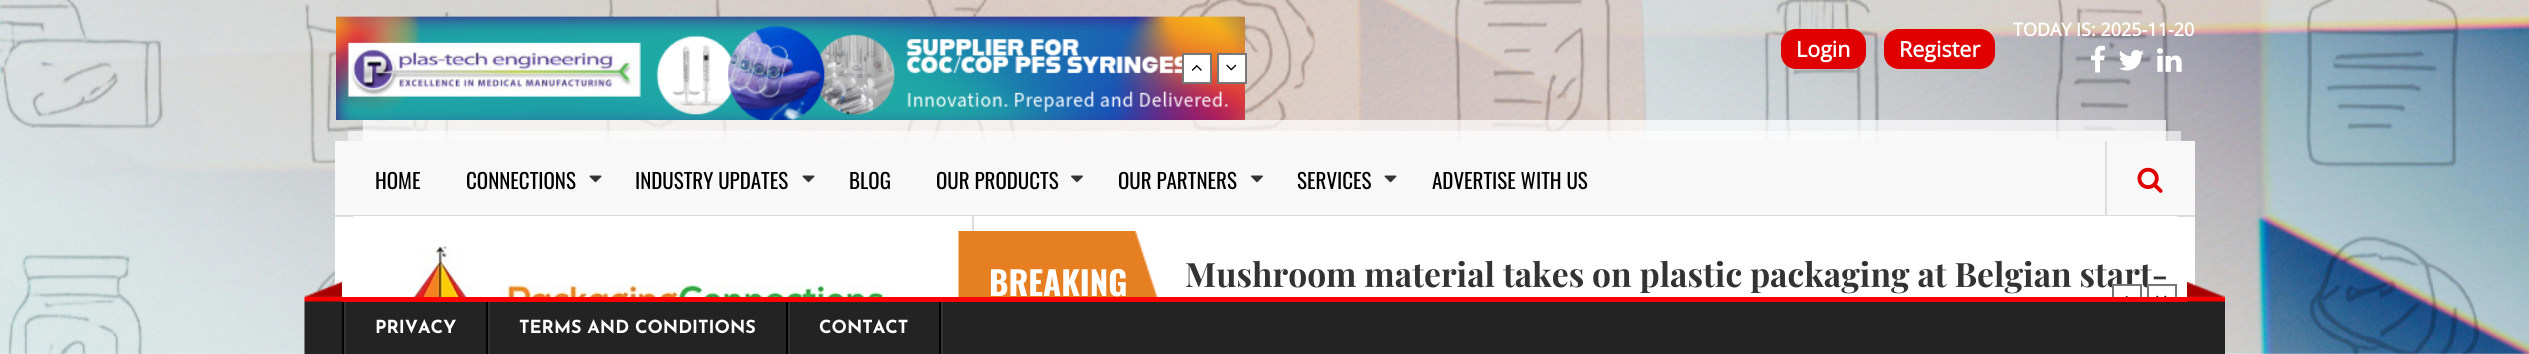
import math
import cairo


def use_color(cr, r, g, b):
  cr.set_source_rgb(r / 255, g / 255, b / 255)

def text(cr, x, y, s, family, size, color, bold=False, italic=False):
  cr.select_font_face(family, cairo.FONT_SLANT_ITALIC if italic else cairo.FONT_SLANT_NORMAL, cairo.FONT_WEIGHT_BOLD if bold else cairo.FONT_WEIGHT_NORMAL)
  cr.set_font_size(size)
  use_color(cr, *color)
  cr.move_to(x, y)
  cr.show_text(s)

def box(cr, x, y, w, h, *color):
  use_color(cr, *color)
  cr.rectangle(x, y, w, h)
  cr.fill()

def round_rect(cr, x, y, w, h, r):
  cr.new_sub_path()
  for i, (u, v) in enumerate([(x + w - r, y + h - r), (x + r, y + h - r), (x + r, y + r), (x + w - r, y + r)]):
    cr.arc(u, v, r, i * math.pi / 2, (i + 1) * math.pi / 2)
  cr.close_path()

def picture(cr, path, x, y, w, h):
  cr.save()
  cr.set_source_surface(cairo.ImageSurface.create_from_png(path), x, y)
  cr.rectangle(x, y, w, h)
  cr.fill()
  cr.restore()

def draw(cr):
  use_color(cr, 255, 255, 255)
  cr.paint()
  picture(cr, "img_01.png", 0, 0, 2529, 354)
  picture(cr, "img_02.png", 336, 16, 909, 104)
  use_color(cr, 255, 255, 255)
  cr.rectangle(1183, 54, 28, 29)
  cr.fill_preserve()
  use_color(cr, 119, 119, 119)
  cr.stroke()
  picture(cr, "img_03.png", 1191, 65, 11, 6)
  use_color(cr, 255, 255, 255)
  cr.rectangle(1218, 54, 28, 29)
  cr.fill_preserve()
  use_color(cr, 119, 119, 119)
  cr.stroke()
  picture(cr, "img_04.png", 1226, 64, 11, 7)
  picture(cr, "img_05.png", 2091, 45, 14, 28)
  picture(cr, "img_06.png", 2119, 50, 25, 21)
  picture(cr, "img_07.png", 2157, 48, 25, 24)
  use_color(cr, 224, 0, 0)
  round_rect(cr, 1781, 29, 85, 40, 15)
  cr.fill()
  round_rect(cr, 1884, 29, 111, 40, 15)
  cr.fill()
  box(cr, 335, 217, 1860, 81, 255, 255, 255)
  cr.set_source_rgba(1, 1, 1, 0.6)
  cr.rectangle(348, 131, 1833, 10)
  cr.fill()
  cr.set_source_rgba(1, 1, 1, 0.7)
  cr.rectangle(363, 120, 1803, 21)
  cr.fill()
  box(cr, 335, 141, 1860, 74, 248, 248, 248)
  box(cr, 335, 215, 1860, 2, 221, 221, 221)
  picture(cr, "img_08.png", 589, 175, 13, 8)
  picture(cr, "img_08.png", 802, 175, 13, 8)
  picture(cr, "img_09.png", 1071, 175, 12, 8)
  picture(cr, "img_09.png", 1251, 175, 12, 8)
  picture(cr, "img_08.png", 1384, 175, 13, 8)
  box(cr, 2105, 141, 2, 75, 221, 221, 221)
  picture(cr, "img_10.png", 2137, 167, 26, 26)
  box(cr, 353, 216, 1824, 1, 255, 255, 255)
  picture(cr, "img_11.png", 390, 246, 502, 51)
  box(cr, 972, 216, 2, 15, 221, 221, 221)
  picture(cr, "img_12.png", 958, 231, 200, 66)
  picture(cr, "img_15.png", 304, 282, 38, 72)
  box(cr, 342, 302, 2, 52, 0, 0, 0)
  box(cr, 344, 302, 2, 52, 51, 51, 51)
  picture(cr, "img_16.png", 2187, 282, 38, 72)
  text(cr, 2013, 36, "TODAY IS: 2025-11-20", "Open Sans", 18, (255, 255, 255), bold=True)
  text(cr, 1796, 57, "Login", "Open Sans", 21.5, (255, 255, 255), bold=True)
  text(cr, 1899, 57, "Register", "Open Sans", 21.5, (255, 255, 255), bold=True)
  text(cr, 375, 189, "HOME", "Oswald", 21, (0, 0, 0))
  text(cr, 466, 189, "CONNECTIONS", "Oswald", 21, (0, 0, 0))
  text(cr, 635, 189, "INDUSTRY UPDATES", "Oswald", 21, (0, 0, 0))
  text(cr, 849, 189, "BLOG", "Oswald", 21, (0, 0, 0))
  text(cr, 936, 189, "OUR PRODUCTS", "Oswald", 21, (0, 0, 0))
  text(cr, 1118, 189, "OUR PARTNERS", "Oswald", 21, (0, 0, 0))
  text(cr, 1297, 189, "SERVICES", "Oswald", 21, (0, 0, 0))
  text(cr, 1432, 189, "ADVERTISE WITH US", "Oswald", 21, (0, 0, 0))
  text(cr, 989, 296, "BREAKING", "Oswald", 33, (255, 255, 255), bold=True)
  text(cr, 1185, 287, "Mushroom material takes on plastic packaging at Belgian start-", "Playfair Display", 33.6, (51, 51, 51), bold=True)
  box(cr, 2114, 286, 22, 2, 255, 255, 255)
  cr.rectangle(2113, 285, 28, 29)
  use_color(cr, 119, 119, 119)
  cr.stroke()
  picture(cr, "img_13.png", 2125, 296, 3, 1)
  box(cr, 2149, 286, 3, 2, 255, 255, 255)
  cr.rectangle(2148, 285, 28, 29)
  use_color(cr, 119, 119, 119)
  cr.stroke()
  picture(cr, "img_14.png", 2156, 295, 11, 2)
  box(cr, 346, 302, 1841, 52, 35, 35, 35)
  box(cr, 342, 297, 1845, 5, 255, 0, 0)
  box(cr, 941, 302, 2, 52, 51, 51, 51)
  box(cr, 486, 302, 2, 52, 0, 0, 0)
  text(cr, 375, 333, "PRIVACY", "Josefin Sans", 18, (255, 255, 255), bold=True)
  box(cr, 786, 302, 2, 52, 0, 0, 0)
  box(cr, 488, 302, 2, 52, 51, 51, 51)
  text(cr, 519, 333, "TERMS AND CONDITIONS", "Josefin Sans", 18, (255, 255, 255), bold=True)
  box(cr, 939, 302, 2, 52, 0, 0, 0)
  box(cr, 788, 302, 2, 52, 51, 51, 51)
  text(cr, 819, 333, "CONTACT", "Josefin Sans", 18, (255, 255, 255), bold=True)


surface = cairo.ImageSurface(cairo.FORMAT_RGB24, 2529, 354)
cr = cairo.Context(surface)
options = cairo.FontOptions()
options.set_hint_metrics(cairo.HINT_METRICS_OFF)
options.set_hint_style(cairo.HINT_STYLE_NONE)
cr.set_font_options(options)
cr.set_miter_limit(4)
draw(cr)
surface.write_to_png("out.png")
